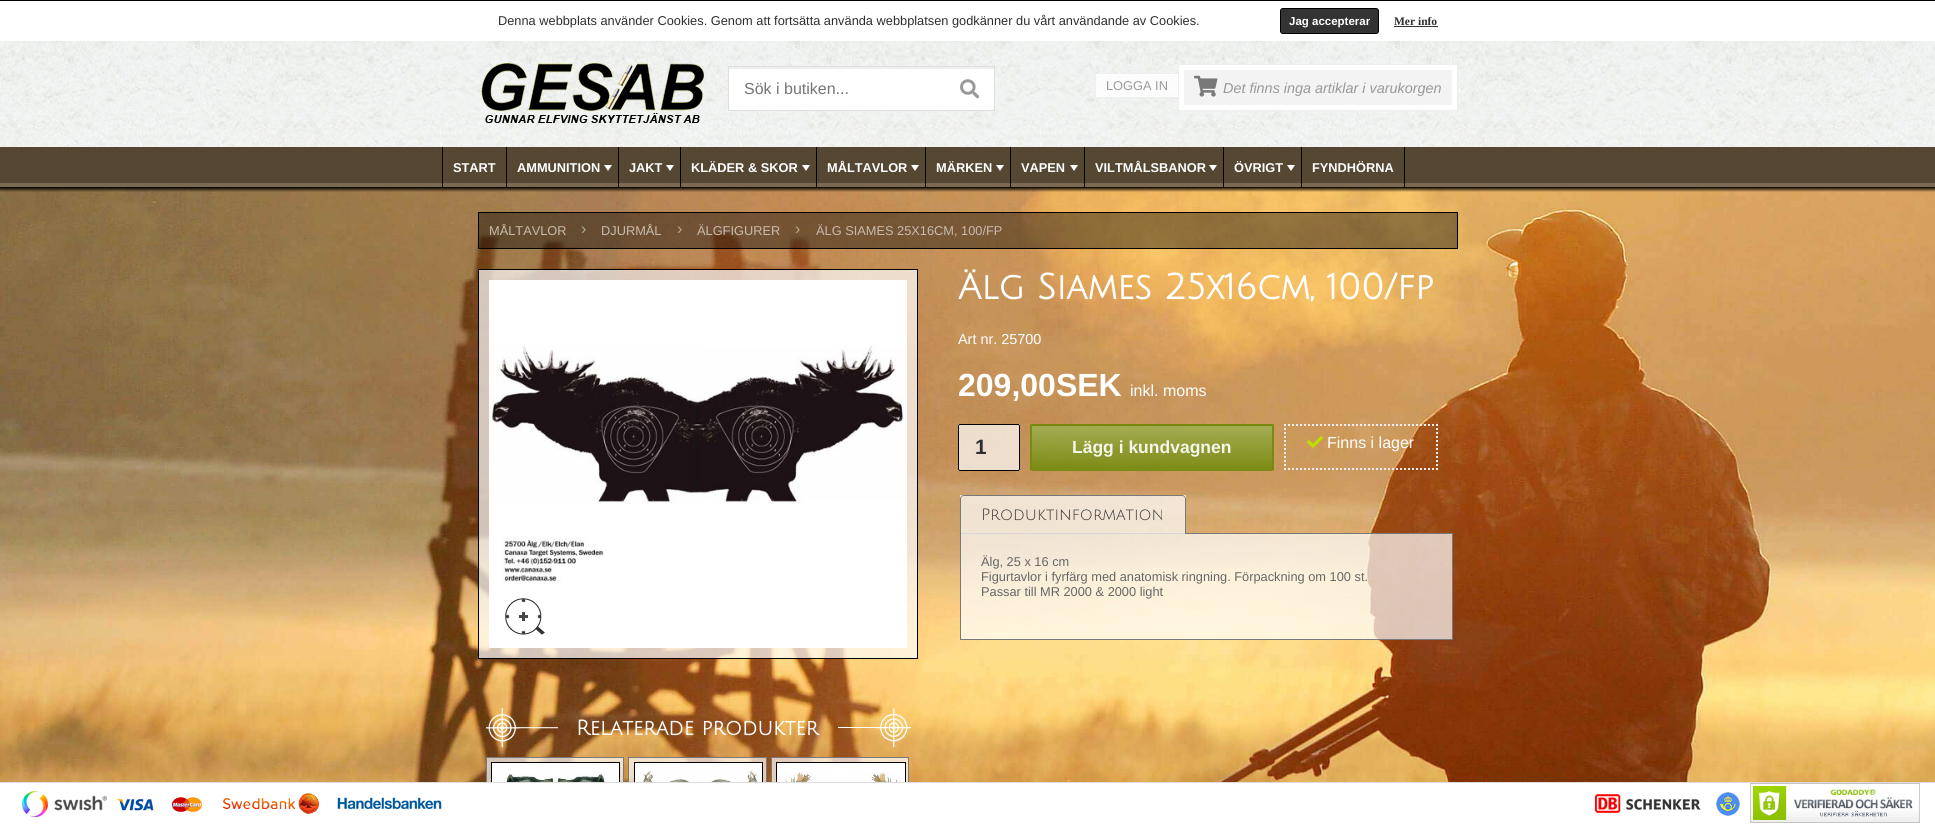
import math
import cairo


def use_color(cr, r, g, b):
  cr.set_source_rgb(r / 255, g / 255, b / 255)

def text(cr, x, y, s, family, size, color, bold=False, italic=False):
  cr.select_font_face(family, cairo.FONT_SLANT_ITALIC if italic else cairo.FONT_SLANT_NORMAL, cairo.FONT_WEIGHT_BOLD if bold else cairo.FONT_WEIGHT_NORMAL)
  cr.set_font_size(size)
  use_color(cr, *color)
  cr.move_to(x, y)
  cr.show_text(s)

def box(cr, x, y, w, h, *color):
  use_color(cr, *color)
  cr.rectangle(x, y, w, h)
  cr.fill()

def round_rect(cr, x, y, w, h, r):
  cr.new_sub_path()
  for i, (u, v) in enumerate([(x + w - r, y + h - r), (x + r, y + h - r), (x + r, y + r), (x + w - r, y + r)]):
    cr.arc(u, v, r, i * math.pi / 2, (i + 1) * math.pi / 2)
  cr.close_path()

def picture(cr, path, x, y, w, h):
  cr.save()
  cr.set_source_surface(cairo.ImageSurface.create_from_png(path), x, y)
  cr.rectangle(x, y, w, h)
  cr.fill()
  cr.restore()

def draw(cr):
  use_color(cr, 255, 255, 255)
  cr.paint()
  picture(cr, "img_01.png", 0, 147, 1935, 635)
  box(cr, 0, 0, 1935, 1, 0, 0, 0)
  use_color(cr, 51, 51, 51)
  round_rect(cr, 1280.5, 8.5, 98, 25, 2.5)
  cr.fill_preserve()
  use_color(cr, 0, 0, 0)
  cr.set_line_width(1)
  cr.stroke()
  box(cr, 1394, 26, 44, 1, 51, 51, 51)
  picture(cr, "img_02.png", 0, 41, 1935, 106)
  picture(cr, "img_03.png", 481, 63, 223, 60)
  box(cr, 729, 69, 265, 41, 255, 255, 255)
  box(cr, 729, 67, 265, 2, 238, 238, 238)
  cr.rectangle(728.5, 66.5, 266, 44)
  use_color(cr, 222, 223, 221)
  cr.stroke()
  picture(cr, "img_04.png", 960, 79, 20, 20)
  cr.set_source_rgba(1, 1, 1, 0.79)
  cr.rectangle(1096, 74, 82, 23)
  cr.fill()
  box(cr, 1095, 73, 83, 1, 238, 238, 238)
  box(cr, 1095, 97, 83, 1, 238, 238, 238)
  box(cr, 1095, 73, 1, 25, 238, 238, 238)
  use_color(cr, 255, 255, 255)
  cr.rectangle(1178.5, 64.5, 279, 46)
  cr.fill_preserve()
  use_color(cr, 238, 238, 238)
  cr.stroke()
  box(cr, 1184, 70, 268, 35, 243, 243, 243)
  picture(cr, "img_05.png", 1194, 75, 24, 22)
  box(cr, 442, 147, 1, 41, 0, 0, 0)
  box(cr, 506, 147, 1, 41, 0, 0, 0)
  box(cr, 618, 147, 1, 41, 0, 0, 0)
  use_color(cr, 255, 255, 255)
  cr.new_path()
  cr.move_to(608, 171)
  cr.line_to(604, 165)
  cr.line_to(612, 165)
  cr.close_path()
  cr.fill()
  box(cr, 680, 147, 1, 41, 0, 0, 0)
  use_color(cr, 255, 255, 255)
  cr.new_path()
  cr.move_to(670, 171)
  cr.line_to(666, 165)
  cr.line_to(674, 165)
  cr.close_path()
  cr.fill()
  box(cr, 816, 147, 1, 41, 0, 0, 0)
  use_color(cr, 255, 255, 255)
  cr.new_path()
  cr.move_to(806, 171)
  cr.line_to(802, 165)
  cr.line_to(810, 165)
  cr.close_path()
  cr.fill()
  box(cr, 925, 147, 1, 41, 0, 0, 0)
  use_color(cr, 255, 255, 255)
  cr.new_path()
  cr.move_to(915, 171)
  cr.line_to(911, 165)
  cr.line_to(919, 165)
  cr.close_path()
  cr.fill()
  box(cr, 1010, 147, 1, 41, 0, 0, 0)
  use_color(cr, 255, 255, 255)
  cr.new_path()
  cr.move_to(1000, 171)
  cr.line_to(996, 165)
  cr.line_to(1004, 165)
  cr.close_path()
  cr.fill()
  box(cr, 1084, 147, 1, 41, 0, 0, 0)
  use_color(cr, 255, 255, 255)
  cr.new_path()
  cr.move_to(1074, 171)
  cr.line_to(1070, 165)
  cr.line_to(1078, 165)
  cr.close_path()
  cr.fill()
  box(cr, 1223, 147, 1, 41, 0, 0, 0)
  use_color(cr, 255, 255, 255)
  cr.new_path()
  cr.move_to(1213, 171)
  cr.line_to(1209, 165)
  cr.line_to(1217, 165)
  cr.close_path()
  cr.fill()
  box(cr, 1301, 147, 1, 41, 0, 0, 0)
  use_color(cr, 255, 255, 255)
  cr.new_path()
  cr.move_to(1291, 171)
  cr.line_to(1287, 165)
  cr.line_to(1295, 165)
  cr.close_path()
  cr.fill()
  box(cr, 1404, 147, 1, 41, 0, 0, 0)
  cr.set_source_rgba(0, 0, 0, 0.4)
  cr.rectangle(478.5, 212.5, 979, 36)
  cr.fill_preserve()
  use_color(cr, 0, 0, 0)
  cr.stroke()
  cr.set_source_rgba(1, 1, 1, 0.7)
  cr.rectangle(958, 424, 62, 47)
  cr.fill()
  round_rect(cr, 958.5, 424.5, 61, 46, 1.5)
  use_color(cr, 0, 0, 0)
  cr.stroke()
  round_rect(cr, 1031, 425, 242, 45, 1)
  cr.set_source_rgba(0.463, 0.537, 0.055, 0.9)
  cr.set_line_width(2)
  cr.stroke()
  cr.new_path()
  cr.move_to(1284, 425)
  cr.line_to(1438, 425)
  use_color(cr, 238, 238, 238)
  cr.set_dash([2, 2])
  cr.stroke()
  cr.new_path()
  cr.move_to(1437, 424)
  cr.line_to(1437, 470)
  cr.stroke()
  cr.new_path()
  cr.move_to(1284, 469)
  cr.line_to(1438, 469)
  cr.stroke()
  cr.new_path()
  cr.move_to(1285, 424)
  cr.line_to(1285, 470)
  cr.stroke()
  picture(cr, "img_06.png", 1307, 436, 16, 12)
  cr.set_source_rgba(1, 1, 1, 0.7)
  cr.rectangle(960.5, 533.5, 492, 106)
  cr.fill_preserve()
  use_color(cr, 121, 121, 121)
  cr.set_line_width(1)
  cr.set_dash([])
  cr.stroke()
  cr.set_source_rgba(1, 1, 1, 0.7)
  cr.rectangle(960, 495, 226, 39)
  cr.fill()
  use_color(cr, 121, 121, 121)
  cr.set_fill_rule(cairo.FILL_RULE_EVEN_ODD)
  cr.new_path()
  cr.move_to(964, 495)
  cr.line_to(1182, 495)
  cr.curve_to(1184, 495, 1186, 497, 1186, 499)
  cr.line_to(1186, 534)
  cr.line_to(960, 534)
  cr.line_to(960, 499)
  cr.curve_to(960, 497, 962, 495, 964, 495)
  cr.close_path()
  cr.move_to(964, 496)
  cr.line_to(1182, 496)
  cr.curve_to(1184, 496, 1185, 497, 1185, 499)
  cr.line_to(1185, 534)
  cr.line_to(961, 534)
  cr.line_to(961, 499)
  cr.curve_to(961, 497, 962, 496, 964, 496)
  cr.close_path()
  cr.fill()
  cr.set_source_rgba(1, 1, 1, 0.7)
  cr.rectangle(478.5, 269.5, 439, 389)
  cr.fill_preserve()
  use_color(cr, 0, 0, 0)
  cr.stroke()
  box(cr, 489, 280, 418, 368, 255, 255, 255)
  picture(cr, "img_07.png", 489, 344, 417, 240)
  picture(cr, "img_08.png", 505, 598, 40, 37)
  picture(cr, "img_09.png", 486, 708, 72, 40)
  picture(cr, "img_10.png", 838, 708, 74, 40)
  cr.set_source_rgba(1, 1, 1, 0.7)
  cr.rectangle(487, 758, 136, 24)
  cr.fill()
  cr.rectangle(486.5, 757.5, 137, 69)
  use_color(cr, 121, 121, 121)
  cr.stroke()
  box(cr, 492, 763, 127, 10, 255, 255, 255)
  cr.rectangle(491.5, 762.5, 128, 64)
  use_color(cr, 0, 0, 0)
  cr.stroke()
  picture(cr, "img_11.png", 492, 773, 127, 9)
  cr.set_source_rgba(1, 1, 1, 0.7)
  cr.rectangle(629, 758, 137, 24)
  cr.fill()
  cr.rectangle(628.5, 757.5, 138, 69)
  use_color(cr, 121, 121, 121)
  cr.stroke()
  box(cr, 635, 763, 127, 19, 255, 255, 255)
  cr.rectangle(634.5, 762.5, 128, 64)
  use_color(cr, 0, 0, 0)
  cr.stroke()
  picture(cr, "img_12.png", 639, 770, 122, 12)
  cr.set_source_rgba(1, 1, 1, 0.7)
  cr.rectangle(772, 758, 136, 24)
  cr.fill()
  cr.rectangle(771.5, 757.5, 137, 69)
  use_color(cr, 121, 121, 121)
  cr.stroke()
  box(cr, 777, 763, 128, 19, 255, 255, 255)
  cr.rectangle(776.5, 762.5, 129, 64)
  use_color(cr, 0, 0, 0)
  cr.stroke()
  picture(cr, "img_13.png", 779, 771, 124, 11)
  box(cr, 486, 783, 423, 43, 255, 255, 255)
  box(cr, 0, 782, 1935, 1, 221, 221, 221)
  picture(cr, "img_14.png", 22, 791, 85, 26)
  picture(cr, "img_15.png", 116, 797, 86, 15)
  picture(cr, "img_16.png", 222, 793, 220, 21)
  picture(cr, "img_17.png", 1595, 794, 106, 19)
  picture(cr, "img_18.png", 1716, 792, 24, 24)
  picture(cr, "img_19.png", 1750, 783, 170, 40)
  text(cr, 498, 25, "Denna webbplats använder Cookies. Genom att fortsätta använda webbplatsen godkänner du vårt användande av Cookies.", "Liberation Sans", 12.8, (46, 46, 46))
  text(cr, 1289, 25, "Jag accepterar", "Liberation Sans", 11.5, (255, 255, 255), bold=True)
  text(cr, 1394, 25, "Mer info", "Liberation Serif", 11.5, (46, 46, 46), bold=True)
  text(cr, 744, 94, "Sök i butiken...", "Liberation Sans", 16, (117, 117, 117))
  text(cr, 1106, 90, "LOGGA IN", "Liberation Sans", 12.8, (153, 153, 153))
  text(cr, 1223, 93, "Det finns inga artiklar i varukorgen", "Liberation Sans", 14.4, (153, 153, 153), italic=True)
  text(cr, 453, 172, "START", "Liberation Sans", 12.8, (255, 255, 255), bold=True)
  text(cr, 517, 172, "AMMUNITION", "Liberation Sans", 12.8, (255, 255, 255), bold=True)
  text(cr, 629, 172, "JAKT", "Liberation Sans", 12.8, (255, 255, 255), bold=True)
  text(cr, 691, 172, "KLÄDER & SKOR", "Liberation Sans", 12.8, (255, 255, 255), bold=True)
  text(cr, 827, 172, "MÅLTAVLOR", "Liberation Sans", 12.8, (255, 255, 255), bold=True)
  text(cr, 936, 172, "MÄRKEN", "Liberation Sans", 12.8, (255, 255, 255), bold=True)
  text(cr, 1021, 172, "VAPEN", "Liberation Sans", 12.8, (255, 255, 255), bold=True)
  text(cr, 1095, 172, "VILTMÅLSBANOR", "Liberation Sans", 12.8, (255, 255, 255), bold=True)
  text(cr, 1234, 172, "ÖVRIGT", "Liberation Sans", 12.8, (255, 255, 255), bold=True)
  text(cr, 1312, 172, "FYNDHÖRNA", "Liberation Sans", 12.8, (255, 255, 255), bold=True)
  text(cr, 489, 235, "MÅLTAVLOR", "Liberation Sans", 12.8, (200, 187, 173))
  text(cr, 581, 234, "›", "Liberation Sans", 16, (186, 174, 128))
  text(cr, 601, 235, "DJURMÅL", "Liberation Sans", 12.8, (200, 187, 173))
  text(cr, 677, 234, "›", "Liberation Sans", 16, (186, 174, 128))
  text(cr, 697, 235, "ÄLGFIGURER", "Liberation Sans", 12.8, (200, 187, 173))
  text(cr, 795, 234, "›", "Liberation Sans", 16, (186, 174, 128))
  text(cr, 816, 235, "ÄLG SIAMES 25X16CM, 100/FP", "Liberation Sans", 12.8, (200, 187, 173))
  text(cr, 958, 299, "Älg Siames 25x16cm, 100/fp", "Julius Sans One", 35.25, (255, 255, 255), bold=True)
  text(cr, 958, 344, "Art nr. 25700", "Liberation Sans", 14.4, (255, 255, 255))
  text(cr, 958, 396, "209,00SEK", "Liberation Sans", 32, (255, 255, 255), bold=True)
  text(cr, 1130, 396, "inkl. moms", "Liberation Sans", 16, (255, 255, 255))
  text(cr, 975, 454, "1", "Liberation Sans", 20.75, (46, 46, 46), bold=True)
  text(cr, 1072, 453, "Lägg i kundvagnen", "Liberation Sans", 17.5, (244, 245, 235), bold=True)
  text(cr, 1327, 448, "Finns i lager", "Liberation Sans", 16, (255, 255, 255))
  text(cr, 981, 520, "Produktinformation", "Julius Sans One", 16, (46, 46, 46))
  text(cr, 981, 566, "Älg, 25 x 16 cm", "Liberation Sans", 12.8, (102, 102, 102))
  text(cr, 981, 581, "Figurtavlor i fyrfärg med anatomisk ringning. Förpackning om 100 st.", "Liberation Sans", 12.8, (102, 102, 102))
  text(cr, 981, 596, "Passar till MR 2000 & 2000 light", "Liberation Sans", 12.8, (102, 102, 102))
  text(cr, 576, 735, "Relaterade produkter", "Julius Sans One", 20.75, (255, 255, 255), bold=True)


surface = cairo.ImageSurface(cairo.FORMAT_RGB24, 1935, 826)
cr = cairo.Context(surface)
options = cairo.FontOptions()
options.set_hint_metrics(cairo.HINT_METRICS_OFF)
options.set_hint_style(cairo.HINT_STYLE_NONE)
cr.set_font_options(options)
cr.set_miter_limit(4)
draw(cr)
surface.write_to_png("out.png")
